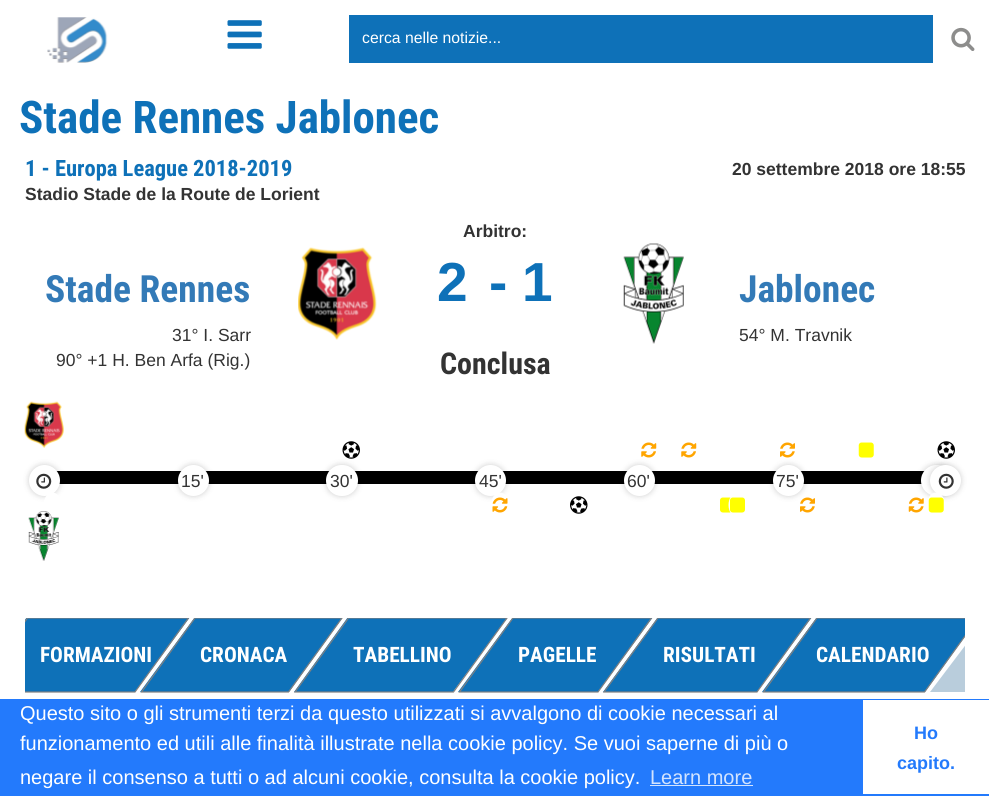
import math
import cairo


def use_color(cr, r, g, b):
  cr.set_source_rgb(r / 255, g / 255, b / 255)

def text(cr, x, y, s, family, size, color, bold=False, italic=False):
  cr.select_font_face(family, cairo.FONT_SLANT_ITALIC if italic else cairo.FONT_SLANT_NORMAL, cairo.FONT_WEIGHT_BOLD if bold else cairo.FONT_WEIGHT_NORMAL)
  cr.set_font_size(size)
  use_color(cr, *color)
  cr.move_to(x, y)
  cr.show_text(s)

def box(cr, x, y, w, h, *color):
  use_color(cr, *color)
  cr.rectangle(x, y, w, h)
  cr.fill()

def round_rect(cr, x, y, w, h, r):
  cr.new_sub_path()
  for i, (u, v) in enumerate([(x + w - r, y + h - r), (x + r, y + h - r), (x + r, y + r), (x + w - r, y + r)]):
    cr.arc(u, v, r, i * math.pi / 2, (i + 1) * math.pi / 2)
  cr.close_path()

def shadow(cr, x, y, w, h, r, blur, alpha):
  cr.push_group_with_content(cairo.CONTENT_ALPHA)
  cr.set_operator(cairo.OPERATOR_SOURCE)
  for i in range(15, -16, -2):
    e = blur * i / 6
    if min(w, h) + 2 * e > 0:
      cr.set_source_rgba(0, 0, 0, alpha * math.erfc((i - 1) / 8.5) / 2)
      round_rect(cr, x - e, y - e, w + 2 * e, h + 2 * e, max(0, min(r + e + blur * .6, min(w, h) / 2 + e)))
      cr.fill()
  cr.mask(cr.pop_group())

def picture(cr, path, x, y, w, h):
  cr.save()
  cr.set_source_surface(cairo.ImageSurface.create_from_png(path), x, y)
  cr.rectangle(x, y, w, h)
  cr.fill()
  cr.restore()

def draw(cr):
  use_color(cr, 255, 255, 255)
  cr.paint()
  picture(cr, "img_01.png", 47, 17, 61, 46)
  picture(cr, "img_02.png", 227, 20, 35, 29)
  box(cr, 349, 15, 584, 48, 14, 113, 184)
  picture(cr, "img_03.png", 951, 27, 24, 24)
  picture(cr, "img_04.png", 298, 247, 79, 93)
  picture(cr, "img_05.png", 623, 243, 61, 101)
  picture(cr, "img_06.png", 24, 401, 40, 47)
  picture(cr, "img_07.png", 342, 441, 18, 18)
  picture(cr, "img_08.png", 641, 442, 16, 16)
  picture(cr, "img_08.png", 681, 442, 16, 16)
  picture(cr, "img_09.png", 780, 442, 15, 16)
  picture(cr, "img_10.png", 858, 442, 16, 16)
  picture(cr, "img_07.png", 937, 441, 18, 18)
  box(cr, 56, 471, 869, 13, 0, 0, 0)
  use_color(cr, 0, 0, 0)
  shadow(cr, 29, 465, 31, 31, 15.5, 3, 0.2)
  use_color(cr, 255, 255, 255)
  cr.arc(44.5, 480.5, 15.5, 0, 2 * math.pi)
  cr.fill()
  picture(cr, "img_11.png", 36, 473, 16, 16)
  use_color(cr, 0, 0, 0)
  shadow(cr, 921, 465, 32, 31, 15.5, 3, 0.2)
  use_color(cr, 255, 255, 255)
  round_rect(cr, 921, 465, 32, 31, 15.5)
  cr.fill()
  use_color(cr, 0, 0, 0)
  shadow(cr, 178, 465, 31, 31, 15.5, 3, 0.2)
  use_color(cr, 255, 255, 255)
  cr.arc(193.5, 480.5, 15.5, 0, 2 * math.pi)
  cr.fill()
  use_color(cr, 0, 0, 0)
  shadow(cr, 326, 465, 32, 31, 15.5, 3, 0.2)
  use_color(cr, 255, 255, 255)
  round_rect(cr, 326, 465, 32, 31, 15.5)
  cr.fill()
  use_color(cr, 0, 0, 0)
  shadow(cr, 475, 465, 31, 31, 15.5, 3, 0.2)
  use_color(cr, 255, 255, 255)
  cr.arc(490.5, 480.5, 15.5, 0, 2 * math.pi)
  cr.fill()
  use_color(cr, 0, 0, 0)
  shadow(cr, 624, 465, 31, 31, 15.5, 3, 0.2)
  use_color(cr, 255, 255, 255)
  cr.arc(639.5, 480.5, 15.5, 0, 2 * math.pi)
  cr.fill()
  use_color(cr, 0, 0, 0)
  shadow(cr, 773, 465, 31, 31, 15.5, 3, 0.2)
  use_color(cr, 255, 255, 255)
  cr.arc(788.5, 480.5, 15.5, 0, 2 * math.pi)
  cr.fill()
  use_color(cr, 0, 0, 0)
  shadow(cr, 930, 465, 31, 31, 15.5, 3, 0.2)
  use_color(cr, 255, 255, 255)
  cr.arc(945.5, 480.5, 15.5, 0, 2 * math.pi)
  cr.fill()
  picture(cr, "img_12.png", 938, 473, 16, 16)
  cr.new_path()
  cr.move_to(52.5, 492.5)
  cr.curve_to(57.5, 492.5, 61.5, 498, 61.5, 505)
  cr.curve_to(61.5, 512, 57.5, 517.5, 52.5, 517.5)
  cr.curve_to(47.5, 517.5, 43.5, 512, 43.5, 505)
  cr.curve_to(43.5, 498, 47.5, 492.5, 52.5, 492.5)
  cr.close_path()
  cr.fill()
  picture(cr, "img_13.png", 28, 511, 31, 50)
  cr.new_path()
  cr.move_to(500, 492.5)
  cr.curve_to(505, 492.5, 509, 498, 509, 505)
  cr.curve_to(509, 512, 505, 517.5, 500, 517.5)
  cr.curve_to(495, 517.5, 491, 512, 491, 505)
  cr.curve_to(491, 498, 495, 492.5, 500, 492.5)
  cr.close_path()
  cr.fill()
  picture(cr, "img_14.png", 492, 497, 16, 16)
  picture(cr, "img_15.png", 570, 496, 18, 18)
  picture(cr, "img_16.png", 720, 497, 11, 16)
  cr.new_path()
  cr.move_to(737.5, 492.5)
  cr.curve_to(742.5, 492.5, 746.5, 498, 746.5, 505)
  cr.curve_to(746.5, 512, 742.5, 517.5, 737.5, 517.5)
  cr.curve_to(732.5, 517.5, 728.5, 512, 728.5, 505)
  cr.curve_to(728.5, 498, 732.5, 492.5, 737.5, 492.5)
  cr.close_path()
  cr.fill()
  picture(cr, "img_17.png", 730, 497, 15, 16)
  picture(cr, "img_18.png", 800, 497, 15, 16)
  picture(cr, "img_19.png", 908, 497, 16, 16)
  cr.new_path()
  cr.move_to(936, 492.5)
  cr.curve_to(941, 492.5, 945, 498, 945, 505)
  cr.curve_to(945, 512, 941, 517.5, 936, 517.5)
  cr.curve_to(931, 517.5, 927, 512, 927, 505)
  cr.curve_to(927, 498, 931, 492.5, 936, 492.5)
  cr.close_path()
  cr.fill()
  picture(cr, "img_20.png", 928, 497, 16, 16)
  cr.save()
  cr.rectangle(25, 618, 940, 75)
  cr.clip()
  use_color(cr, 14, 113, 184)
  cr.new_path()
  cr.move_to(27, 617)
  cr.line_to(190, 617)
  cr.line_to(135, 692)
  cr.line_to(-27, 692)
  cr.close_path()
  cr.fill()
  cr.new_path()
  cr.move_to(27.5, 618)
  cr.line_to(188.5, 618)
  cr.line_to(135, 692)
  cr.line_to(-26, 692)
  cr.close_path()
  use_color(cr, 128, 128, 128)
  cr.set_line_width(1.2)
  cr.stroke()
  use_color(cr, 185, 205, 220)
  cr.new_path()
  cr.move_to(986, 692)
  cr.line_to(930, 692)
  cr.line_to(986, 618)
  cr.close_path()
  cr.fill()
  cr.restore()
  box(cr, 0, 699, 989, 97, 35, 122, 252)
  box(cr, 650, 785, 103, 1, 211, 228, 254)
  box(cr, 863, 700, 126, 94, 255, 255, 255)
  text(cr, 362, 43, "cerca nelle notizie...", "Liberation Sans", 15.75, (255, 255, 255))
  text(cr, 19, 133, "Stade Rennes Jablonec", "Roboto Condensed", 45, (14, 113, 184), bold=True)
  text(cr, 25, 176, "1 - Europa League 2018-2019", "Roboto Condensed", 22.5, (14, 113, 184), bold=True)
  text(cr, 25, 200, "Stadio Stade de la Route de Lorient", "Liberation Sans", 17.5, (51, 51, 51), bold=True)
  text(cr, 732, 175, "20 settembre 2018 ore 18:55", "Liberation Sans", 17.5, (51, 51, 51), bold=True)
  text(cr, 463, 237, "Arbitro:", "Liberation Sans", 17.5, (51, 51, 51), bold=True)
  text(cr, 45, 302, "Stade Rennes", "Roboto Condensed", 37.5, (51, 122, 183), bold=True)
  text(cr, 172, 341, "31° I. Sarr", "Liberation Sans", 17.5, (51, 51, 51))
  text(cr, 56, 366, "90° +1 H. Ben Arfa (Rig.)", "Liberation Sans", 17.5, (51, 51, 51))
  text(cr, 437, 301, "2", "Liberation Sans", 55, (14, 113, 184), bold=True)
  text(cr, 489, 301, "-", "Liberation Sans", 55, (14, 113, 184), bold=True)
  text(cr, 522, 301, "1", "Liberation Sans", 55, (14, 113, 184), bold=True)
  text(cr, 440, 374, "Conclusa", "Roboto Condensed", 30, (51, 51, 51), bold=True)
  text(cr, 739, 302, "Jablonec", "Roboto Condensed", 37.5, (51, 122, 183), bold=True)
  text(cr, 739, 341, "54° M. Travnik", "Liberation Sans", 17.5, (51, 51, 51))
  text(cr, 181, 487, "15'", "Liberation Sans", 17.5, (51, 51, 51))
  text(cr, 330, 487, "30'", "Liberation Sans", 17.5, (51, 51, 51))
  text(cr, 479, 487, "45'", "Liberation Sans", 17.5, (51, 51, 51))
  text(cr, 627, 487, "60'", "Liberation Sans", 17.5, (51, 51, 51))
  text(cr, 776, 487, "75'", "Liberation Sans", 17.5, (51, 51, 51))
  text(cr, 40, 662, "FORMAZIONI", "Roboto Condensed", 21.25, (255, 255, 255), bold=True)
  cr.save()
  cr.rectangle(25, 618, 940, 75)
  cr.clip()
  use_color(cr, 14, 113, 184)
  cr.new_path()
  cr.move_to(195, 617)
  cr.line_to(343, 617)
  cr.line_to(289, 692)
  cr.line_to(140, 692)
  cr.close_path()
  cr.fill()
  cr.new_path()
  cr.move_to(195, 618)
  cr.line_to(342, 618)
  cr.line_to(288.5, 692)
  cr.line_to(141.5, 692)
  cr.close_path()
  use_color(cr, 128, 128, 128)
  cr.set_line_width(1.2)
  cr.stroke()
  cr.restore()
  text(cr, 200, 662, "CRONACA", "Roboto Condensed", 21.25, (255, 255, 255), bold=True)
  cr.save()
  cr.rectangle(25, 618, 940, 75)
  cr.clip()
  use_color(cr, 14, 113, 184)
  cr.new_path()
  cr.move_to(348, 617)
  cr.line_to(508, 617)
  cr.line_to(453, 692)
  cr.line_to(294, 692)
  cr.close_path()
  cr.fill()
  cr.new_path()
  cr.move_to(348.5, 618)
  cr.line_to(507, 618)
  cr.line_to(453.5, 692)
  cr.line_to(295, 692)
  cr.close_path()
  use_color(cr, 128, 128, 128)
  cr.set_line_width(1.2)
  cr.stroke()
  cr.restore()
  text(cr, 353, 662, "TABELLINO", "Roboto Condensed", 21.25, (255, 255, 255), bold=True)
  cr.save()
  cr.rectangle(25, 618, 940, 75)
  cr.clip()
  use_color(cr, 14, 113, 184)
  cr.new_path()
  cr.move_to(513, 617)
  cr.line_to(653, 617)
  cr.line_to(598, 692)
  cr.line_to(458, 692)
  cr.close_path()
  cr.fill()
  cr.new_path()
  cr.move_to(513, 618)
  cr.line_to(651.5, 618)
  cr.line_to(598, 692)
  cr.line_to(459.5, 692)
  cr.close_path()
  use_color(cr, 128, 128, 128)
  cr.set_line_width(1.2)
  cr.stroke()
  cr.restore()
  text(cr, 518, 662, "PAGELLE", "Roboto Condensed", 21.25, (255, 255, 255), bold=True)
  cr.save()
  cr.rectangle(25, 618, 940, 75)
  cr.clip()
  use_color(cr, 14, 113, 184)
  cr.new_path()
  cr.move_to(658, 617)
  cr.line_to(812, 617)
  cr.line_to(757, 692)
  cr.line_to(603, 692)
  cr.close_path()
  cr.fill()
  cr.new_path()
  cr.move_to(658, 618)
  cr.line_to(810.5, 618)
  cr.line_to(757, 692)
  cr.line_to(604, 692)
  cr.close_path()
  use_color(cr, 128, 128, 128)
  cr.set_line_width(1.2)
  cr.stroke()
  cr.restore()
  text(cr, 663, 662, "RISULTATI", "Roboto Condensed", 21.25, (255, 255, 255), bold=True)
  cr.save()
  cr.rectangle(25, 618, 940, 75)
  cr.clip()
  use_color(cr, 14, 113, 184)
  cr.new_path()
  cr.move_to(817, 617)
  cr.line_to(979, 617)
  cr.line_to(925, 692)
  cr.line_to(762, 692)
  cr.close_path()
  cr.fill()
  cr.new_path()
  cr.move_to(817, 618)
  cr.line_to(978, 618)
  cr.line_to(924.5, 692)
  cr.line_to(763.5, 692)
  cr.close_path()
  use_color(cr, 128, 128, 128)
  cr.set_line_width(1.2)
  cr.stroke()
  cr.restore()
  text(cr, 816, 662, "CALENDARIO", "Roboto Condensed", 21.25, (255, 255, 255), bold=True)
  text(cr, 20, 720, "Questo sito o gli strumenti terzi da questo utilizzati si avvalgono di cookie necessari al", "Liberation Sans", 20, (255, 255, 255))
  text(cr, 20, 750, "funzionamento ed utili alle finalità illustrate nella cookie policy. Se vuoi saperne di più o", "Liberation Sans", 20, (255, 255, 255))
  text(cr, 20, 784, "negare il consenso a tutti o ad alcuni cookie, consulta la cookie policy.", "Liberation Sans", 20, (255, 255, 255))
  text(cr, 650, 784, "Learn more", "Liberation Sans", 20, (211, 228, 254))
  text(cr, 914, 739, "Ho", "Liberation Sans", 18, (35, 122, 252), bold=True)
  text(cr, 897, 769, "capito.", "Liberation Sans", 18, (35, 122, 252), bold=True)


surface = cairo.ImageSurface(cairo.FORMAT_RGB24, 989, 796)
cr = cairo.Context(surface)
options = cairo.FontOptions()
options.set_hint_metrics(cairo.HINT_METRICS_OFF)
options.set_hint_style(cairo.HINT_STYLE_NONE)
cr.set_font_options(options)
cr.set_miter_limit(4)
draw(cr)
surface.write_to_png("out.png")
